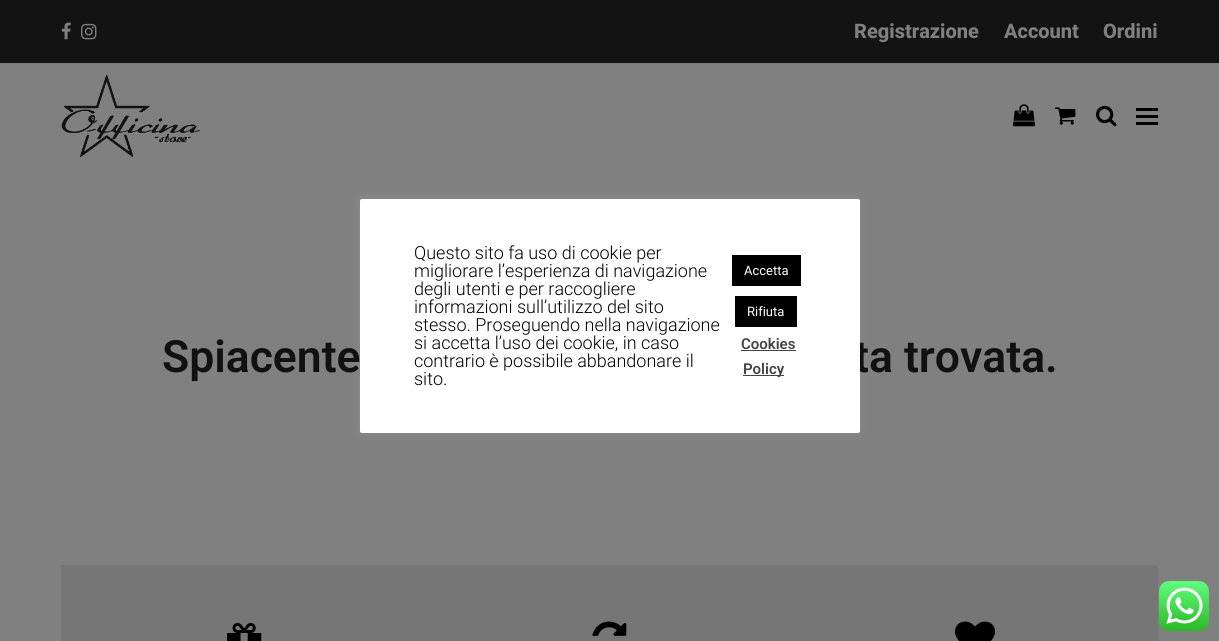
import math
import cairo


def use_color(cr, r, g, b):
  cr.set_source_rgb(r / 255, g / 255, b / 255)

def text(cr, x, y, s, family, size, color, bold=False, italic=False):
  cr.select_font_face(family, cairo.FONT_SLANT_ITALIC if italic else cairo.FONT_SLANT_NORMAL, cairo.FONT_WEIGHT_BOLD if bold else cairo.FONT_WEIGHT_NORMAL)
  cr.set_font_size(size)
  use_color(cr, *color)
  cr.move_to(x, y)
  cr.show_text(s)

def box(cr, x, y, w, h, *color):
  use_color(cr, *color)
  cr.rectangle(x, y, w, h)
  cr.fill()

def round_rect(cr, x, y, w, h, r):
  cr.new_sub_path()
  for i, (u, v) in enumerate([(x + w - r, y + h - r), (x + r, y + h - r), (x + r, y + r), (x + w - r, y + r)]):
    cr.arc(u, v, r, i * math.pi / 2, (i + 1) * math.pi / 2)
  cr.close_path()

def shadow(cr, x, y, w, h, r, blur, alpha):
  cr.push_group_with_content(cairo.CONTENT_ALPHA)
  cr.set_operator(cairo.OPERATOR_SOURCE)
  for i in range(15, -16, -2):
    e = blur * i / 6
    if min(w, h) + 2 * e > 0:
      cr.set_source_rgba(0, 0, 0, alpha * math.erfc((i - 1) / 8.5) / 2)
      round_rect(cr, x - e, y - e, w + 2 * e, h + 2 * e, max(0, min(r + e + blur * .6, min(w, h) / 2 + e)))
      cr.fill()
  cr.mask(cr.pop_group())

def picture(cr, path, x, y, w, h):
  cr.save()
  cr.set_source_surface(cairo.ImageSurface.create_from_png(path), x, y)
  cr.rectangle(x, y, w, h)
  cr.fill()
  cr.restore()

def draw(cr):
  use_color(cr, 128, 128, 128)
  cr.paint()
  box(cr, 0, 0, 1219, 63, 19, 19, 19)
  box(cr, 0, 63, 1219, 1, 119, 119, 119)
  picture(cr, "img_01.png", 61, 22, 10, 18)
  picture(cr, "img_02.png", 81, 23, 16, 17)
  picture(cr, "img_03.png", 61, 74, 139, 84)
  picture(cr, "img_04.png", 1013, 104, 22, 23)
  picture(cr, "img_05.png", 1055, 107, 21, 18)
  picture(cr, "img_06.png", 1096, 105, 21, 22)
  box(cr, 1136, 115, 22, 3, 0, 0, 0)
  box(cr, 1136, 108, 22, 3, 0, 0, 0)
  box(cr, 1136, 122, 22, 3, 0, 0, 0)
  box(cr, 61, 565, 1097, 76, 118, 118, 118)
  picture(cr, "img_07.png", 227, 623, 35, 18)
  picture(cr, "img_08.png", 592, 621, 35, 15)
  picture(cr, "img_09.png", 955, 621, 40, 20)
  use_color(cr, 172, 171, 171)
  shadow(cr, 360, 198, 500, 234, 2, 5, 0.3)
  picture(cr, "img_10.png", 1159, 581, 50, 50)
  text(cr, 854, 38, "Registrazione", "Roboto ExtraBold", 20, (128, 128, 128))
  text(cr, 1004, 38, "Account", "Roboto ExtraBold", 20, (128, 128, 128))
  text(cr, 1103, 38, "Ordini", "Roboto ExtraBold", 20, (128, 128, 128))
  text(cr, 162, 372, "Spiacente", "Roboto SemiBold", 44.5, (17, 17, 17))
  text(cr, 854, 372, "ta trovata.", "Roboto SemiBold", 44.5, (17, 17, 17))
  use_color(cr, 255, 255, 255)
  round_rect(cr, 360, 199, 500, 234, 2)
  cr.fill()
  text(cr, 414, 259, "Questo sito fa uso di cookie per", "Roboto Light", 18, (0, 0, 0))
  text(cr, 414, 277, "migliorare l’esperienza di navigazione", "Roboto Light", 18, (0, 0, 0))
  text(cr, 414, 295, "degli utenti e per raccogliere", "Roboto Light", 18, (0, 0, 0))
  text(cr, 414, 313, "informazioni sull’utilizzo del sito", "Roboto Light", 18, (0, 0, 0))
  text(cr, 414, 331, "stesso. Proseguendo nella navigazione", "Roboto Light", 18, (0, 0, 0))
  text(cr, 414, 349, "si accetta l’uso dei cookie, in caso", "Roboto Light", 18, (0, 0, 0))
  text(cr, 414, 367, "contrario è possibile abbandonare il", "Roboto Light", 18, (0, 0, 0))
  text(cr, 414, 385, "sito.", "Roboto Light", 18, (0, 0, 0))
  box(cr, 732, 255, 69, 31, 0, 0, 0)
  text(cr, 744, 275, "Accetta", "Roboto", 13, (255, 255, 255))
  box(cr, 735, 296, 62, 31, 0, 0, 0)
  text(cr, 747, 316, "Rifiuta", "Roboto", 13, (255, 255, 255))
  text(cr, 741, 349, "Cookies", "Roboto SemiBold", 15, (68, 68, 68))
  box(cr, 741, 350, 55, 1, 68, 68, 68)
  box(cr, 743, 375, 41, 1, 68, 68, 68)
  text(cr, 743, 374, "Policy", "Roboto SemiBold", 15, (68, 68, 68))


surface = cairo.ImageSurface(cairo.FORMAT_RGB24, 1219, 641)
cr = cairo.Context(surface)
options = cairo.FontOptions()
options.set_hint_metrics(cairo.HINT_METRICS_OFF)
options.set_hint_style(cairo.HINT_STYLE_NONE)
cr.set_font_options(options)
cr.set_miter_limit(4)
draw(cr)
surface.write_to_png("out.png")
